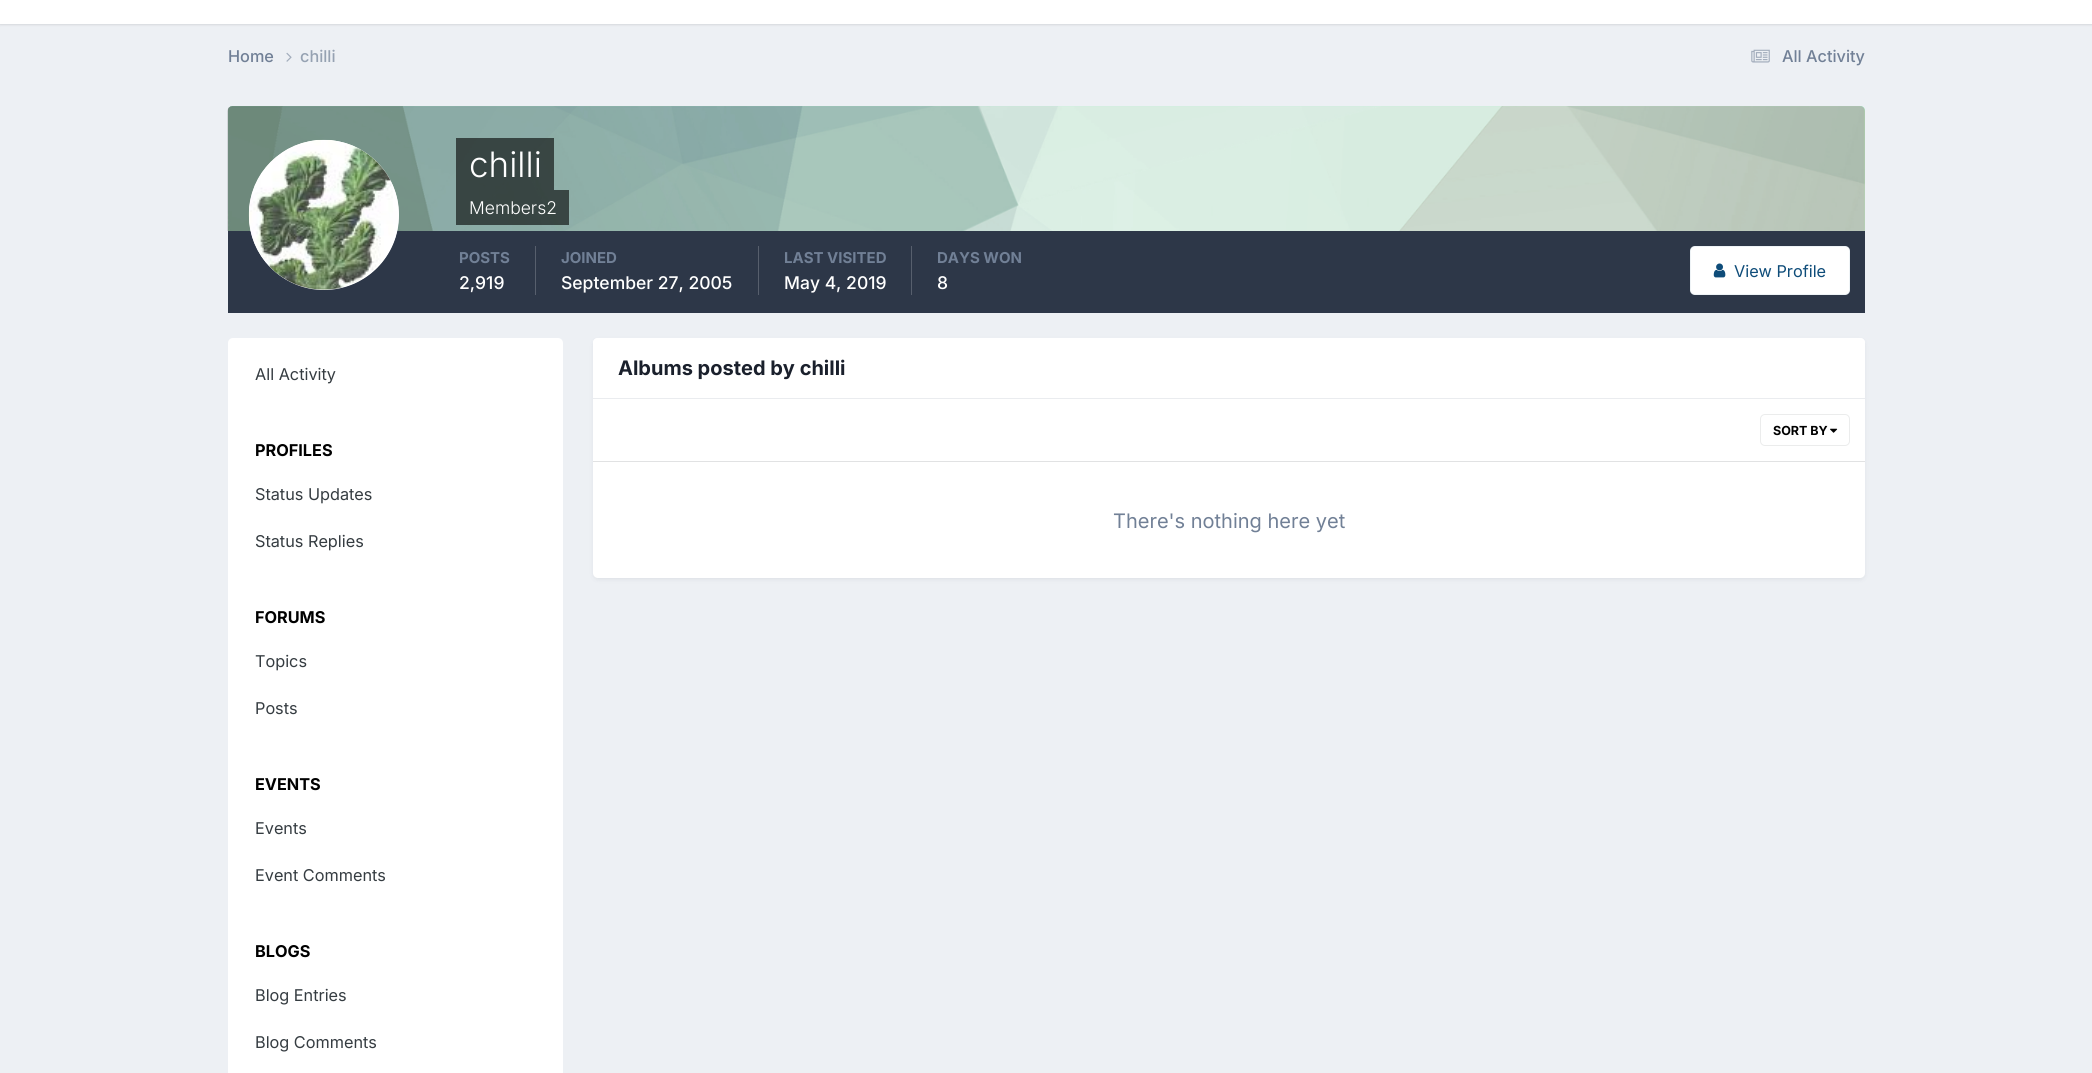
import math
import cairo


def use_color(cr, r, g, b):
  cr.set_source_rgb(r / 255, g / 255, b / 255)

def text(cr, x, y, s, family, size, color, bold=False, italic=False):
  cr.select_font_face(family, cairo.FONT_SLANT_ITALIC if italic else cairo.FONT_SLANT_NORMAL, cairo.FONT_WEIGHT_BOLD if bold else cairo.FONT_WEIGHT_NORMAL)
  cr.set_font_size(size)
  use_color(cr, *color)
  cr.move_to(x, y)
  cr.show_text(s)

def box(cr, x, y, w, h, *color):
  use_color(cr, *color)
  cr.rectangle(x, y, w, h)
  cr.fill()

def round_rect(cr, x, y, w, h, r):
  cr.new_sub_path()
  for i, (u, v) in enumerate([(x + w - r, y + h - r), (x + r, y + h - r), (x + r, y + r), (x + w - r, y + r)]):
    cr.arc(u, v, r, i * math.pi / 2, (i + 1) * math.pi / 2)
  cr.close_path()

def shadow(cr, x, y, w, h, r, blur, alpha):
  cr.push_group_with_content(cairo.CONTENT_ALPHA)
  cr.set_operator(cairo.OPERATOR_SOURCE)
  for i in range(15, -16, -2):
    e = blur * i / 6
    if min(w, h) + 2 * e > 0:
      cr.set_source_rgba(0, 0, 0, alpha * math.erfc((i - 1) / 8.5) / 2)
      round_rect(cr, x - e, y - e, w + 2 * e, h + 2 * e, max(0, min(r + e + blur * .6, min(w, h) / 2 + e)))
      cr.fill()
  cr.mask(cr.pop_group())

def picture(cr, path, x, y, w, h):
  cr.save()
  cr.set_source_surface(cairo.ImageSurface.create_from_png(path), x, y)
  cr.rectangle(x, y, w, h)
  cr.fill()
  cr.restore()

def draw(cr):
  use_color(cr, 237, 240, 244)
  cr.paint()
  use_color(cr, 0, 0, 0)
  shadow(cr, 0, -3, 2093, 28, 0, 1, 0.1)
  box(cr, 0, 0, 2092, 24, 255, 255, 255)
  picture(cr, "img_01.png", 286, 52, 6, 10)
  picture(cr, "img_02.png", 1751, 49, 19, 14)
  use_color(cr, 153, 255, 202)
  cr.new_path()
  cr.move_to(233, 106)
  cr.line_to(1860, 106)
  cr.curve_to(1863, 106, 1865, 108, 1865, 111)
  cr.line_to(1865, 231)
  cr.line_to(228, 231)
  cr.line_to(228, 111)
  cr.curve_to(228, 108, 230, 106, 233, 106)
  cr.close_path()
  cr.fill()
  picture(cr, "img_03.png", 227, 106, 1638, 125)
  box(cr, 228, 231, 1637, 82, 45, 55, 72)
  use_color(cr, 255, 255, 255)
  cr.arc(324, 215, 75, 0, 2 * math.pi)
  cr.fill()
  picture(cr, "img_04.png", 248, 139, 151, 151)
  cr.set_source_rgba(0, 0, 0, 0.6)
  cr.rectangle(456, 138, 98, 52)
  cr.fill()
  cr.rectangle(456, 190, 113, 35)
  cr.fill()
  box(cr, 535, 246, 1, 49, 87, 95, 109)
  box(cr, 758, 246, 1, 49, 87, 95, 109)
  box(cr, 911, 246, 1, 49, 87, 95, 109)
  use_color(cr, 255, 255, 255)
  round_rect(cr, 1690, 246, 160, 49, 5)
  cr.fill()
  round_rect(cr, 1690.5, 246.5, 159, 48, 4.5)
  cr.set_source_rgba(0.055, 0.298, 0.475, 0.07)
  cr.set_line_width(1)
  cr.stroke()
  picture(cr, "img_05.png", 1713, 263, 13, 15)
  use_color(cr, 255, 255, 255)
  round_rect(cr, 228, 338, 335, 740, 5)
  cr.fill()
  use_color(cr, 45, 55, 72)
  shadow(cr, 594, 341, 1270, 238, 4, 2.5, 0.1)
  use_color(cr, 255, 255, 255)
  round_rect(cr, 593, 338, 1272, 240, 5)
  cr.fill()
  cr.new_path()
  cr.move_to(598, 338)
  cr.line_to(1860, 338)
  cr.curve_to(1863, 338, 1865, 340, 1865, 343)
  cr.line_to(1865, 399)
  cr.line_to(593, 399)
  cr.line_to(593, 343)
  cr.curve_to(593, 340, 595, 338, 598, 338)
  cr.close_path()
  cr.fill()
  box(cr, 593, 398, 1272, 1, 234, 236, 239)
  box(cr, 593, 461, 1272, 1, 225, 226, 227)
  picture(cr, "img_06.png", 1830, 428, 8, 5)
  round_rect(cr, 1760.5, 414.5, 89, 31, 4.5)
  use_color(cr, 235, 236, 236)
  cr.stroke()
  text(cr, 228, 62, "Home", "Inter Medium", 16.25, (113, 128, 150))
  text(cr, 300, 62, "chilli", "Inter Medium", 16.25, (150, 162, 178))
  text(cr, 1782, 62, "All Activity", "Inter Medium", 16.25, (113, 128, 150))
  text(cr, 469, 177, "chilli", "Inter Light", 35, (255, 255, 255))
  text(cr, 469, 214, "Members2", "Inter Light", 17.5, (255, 255, 255))
  text(cr, 459, 263, "POSTS", "Inter", 15, (113, 128, 150), bold=True)
  text(cr, 459, 289, "2,919", "Inter Medium", 17.5, (255, 255, 255))
  text(cr, 561, 263, "JOINED", "Inter", 15, (113, 128, 150), bold=True)
  text(cr, 561, 289, "September 27, 2005", "Inter Medium", 17.5, (255, 255, 255))
  text(cr, 784, 263, "LAST VISITED", "Inter", 15, (113, 128, 150), bold=True)
  text(cr, 784, 289, "May 4, 2019", "Inter Medium", 17.5, (255, 255, 255))
  text(cr, 937, 263, "DAYS WON", "Inter", 15, (113, 128, 150), bold=True)
  text(cr, 937, 289, "8", "Inter Medium", 17.5, (255, 255, 255))
  text(cr, 1734, 277, "View Profile", "Inter", 16.25, (14, 76, 121))
  text(cr, 255, 380, "All Activity", "Inter", 16.25, (53, 60, 65))
  text(cr, 255, 456, "PROFILES", "Inter", 16.25, (0, 0, 0), bold=True)
  text(cr, 255, 500, "Status Updates", "Inter", 16.25, (53, 60, 65))
  text(cr, 255, 547, "Status Replies", "Inter", 16.25, (53, 60, 65))
  text(cr, 255, 623, "FORUMS", "Inter", 16.25, (0, 0, 0), bold=True)
  text(cr, 255, 667, "Topics", "Inter", 16.25, (53, 60, 65))
  text(cr, 255, 714, "Posts", "Inter", 16.25, (53, 60, 65))
  text(cr, 255, 790, "EVENTS", "Inter", 16.25, (0, 0, 0), bold=True)
  text(cr, 255, 834, "Events", "Inter", 16.25, (53, 60, 65))
  text(cr, 255, 881, "Event Comments", "Inter", 16.25, (53, 60, 65))
  text(cr, 255, 957, "BLOGS", "Inter", 16.25, (0, 0, 0), bold=True)
  text(cr, 255, 1001, "Blog Entries", "Inter", 16.25, (53, 60, 65))
  text(cr, 255, 1048, "Blog Comments", "Inter", 16.25, (53, 60, 65))
  text(cr, 618, 375, "Albums posted by chilli", "Inter", 20, (26, 32, 44), bold=True)
  text(cr, 1773, 435, "SORT BY", "Inter", 12.5, (0, 0, 0), bold=True)
  text(cr, 1113, 528, "There's nothing here yet", "Inter", 20, (113, 128, 150))


surface = cairo.ImageSurface(cairo.FORMAT_RGB24, 2092, 1073)
cr = cairo.Context(surface)
options = cairo.FontOptions()
options.set_hint_metrics(cairo.HINT_METRICS_OFF)
options.set_hint_style(cairo.HINT_STYLE_NONE)
cr.set_font_options(options)
cr.set_miter_limit(4)
draw(cr)
surface.write_to_png("out.png")
